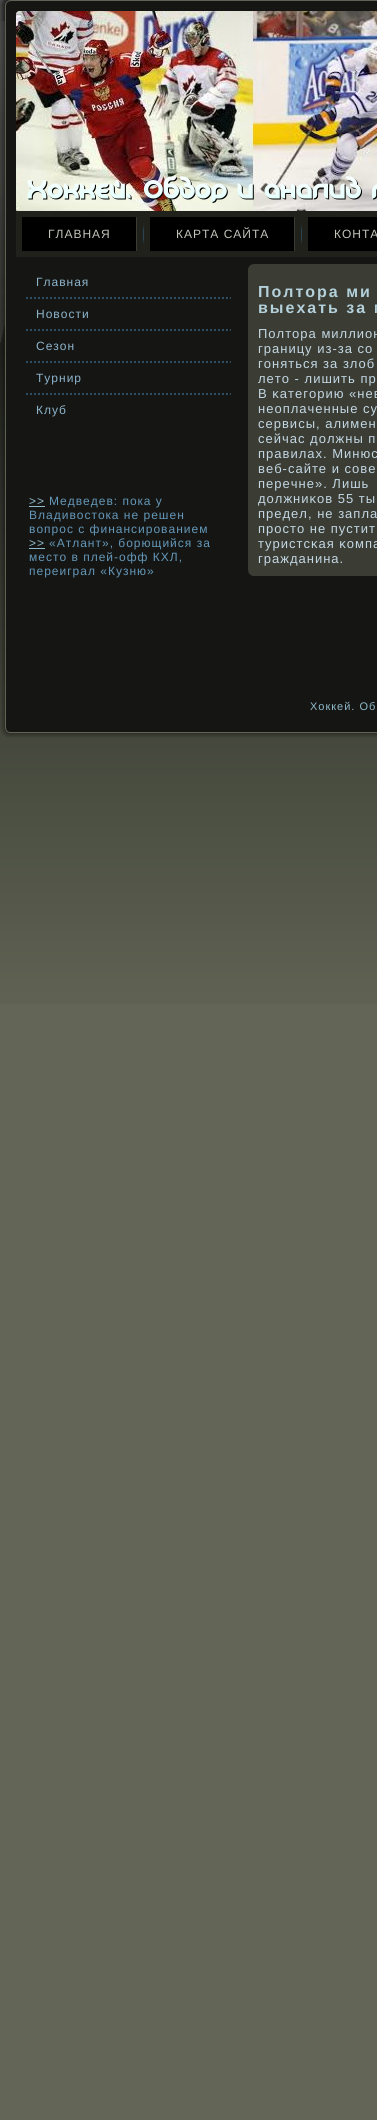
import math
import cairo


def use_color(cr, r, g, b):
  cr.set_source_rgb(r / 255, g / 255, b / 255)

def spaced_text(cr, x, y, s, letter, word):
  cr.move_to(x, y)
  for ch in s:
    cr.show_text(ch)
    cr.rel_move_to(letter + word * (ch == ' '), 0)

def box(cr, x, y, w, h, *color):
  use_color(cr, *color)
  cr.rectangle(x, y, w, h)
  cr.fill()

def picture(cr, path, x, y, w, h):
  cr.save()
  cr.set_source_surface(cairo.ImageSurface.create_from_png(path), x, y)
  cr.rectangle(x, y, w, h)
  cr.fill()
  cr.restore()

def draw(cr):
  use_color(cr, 99, 102, 87)
  cr.paint()
  picture(cr, "img_01.png", 0, 0, 377, 1004)
  picture(cr, "img_02.png", 0, 0, 11, 343)
  picture(cr, "img_03.png", 0, 0, 377, 738)
  picture(cr, "img_04.png", 0, 0, 9, 21)
  picture(cr, "img_05.png", 16, 11, 3, 3)
  picture(cr, "img_07.png", 0, 21, 377, 691)
  picture(cr, "img_06.png", 16, 11, 361, 200)
  box(cr, 16, 211, 361, 46, 33, 33, 28)
  box(cr, 22, 217, 114, 34, 0, 0, 0)
  picture(cr, "img_08.png", 136, 217, 1, 34)
  picture(cr, "img_09.png", 143, 225, 1, 19)
  box(cr, 150, 217, 144, 34, 0, 0, 0)
  picture(cr, "img_08.png", 294, 217, 1, 34)
  picture(cr, "img_09.png", 301, 225, 1, 19)
  box(cr, 308, 217, 69, 34, 0, 0, 0)
  cr.new_path()
  cr.move_to(26, 298)
  cr.line_to(231, 298)
  use_color(cr, 44, 77, 99)
  cr.set_dash([2, 2])
  cr.stroke()
  cr.new_path()
  cr.move_to(26, 330)
  cr.line_to(231, 330)
  cr.stroke()
  cr.new_path()
  cr.move_to(26, 362)
  cr.line_to(231, 362)
  cr.stroke()
  cr.new_path()
  cr.move_to(26, 394)
  cr.line_to(231, 394)
  cr.stroke()
  box(cr, 29, 506, 16, 1, 144, 186, 203)
  box(cr, 29, 548, 16, 1, 144, 186, 203)
  picture(cr, "img_10.png", 248, 264, 129, 312)
  picture(cr, "img_11.png", 248, 264, 6, 6)
  box(cr, 248, 270, 129, 300, 59, 61, 52)
  cr.select_font_face("Liberation Sans")
  cr.set_font_size(12)
  use_color(cr, 194, 196, 186)
  spaced_text(cr, 48, 238, "ГЛАВНАЯ", 1, 0)
  spaced_text(cr, 176, 238, "КАРТА САЙТА", 1, 0)
  spaced_text(cr, 334, 238, "КОНТА", 1, 0)
  use_color(cr, 142, 180, 204)
  spaced_text(cr, 36, 286, "Главная", 1, 0)
  spaced_text(cr, 36, 318, "Новости", 1, 0)
  spaced_text(cr, 36, 350, "Сезон", 1, 0)
  spaced_text(cr, 36, 382, "Турнир", 1, 0)
  spaced_text(cr, 36, 414, "Клуб", 1, 0)
  use_color(cr, 144, 186, 203)
  spaced_text(cr, 29, 505, ">>", 1, 0)
  use_color(cr, 100, 151, 185)
  spaced_text(cr, 49, 505, "Медведев: пока у", 1, 0)
  spaced_text(cr, 29, 519, "Владивостока не решен", 1, 0)
  spaced_text(cr, 29, 533, "вопрос с финансированием", 1, 0)
  use_color(cr, 144, 186, 203)
  spaced_text(cr, 29, 547, ">>", 1, 0)
  use_color(cr, 100, 151, 185)
  spaced_text(cr, 49, 547, "«Атлант», борющийся за", 1, 0)
  spaced_text(cr, 29, 561, "место в плей-офф КХЛ,", 1, 0)
  spaced_text(cr, 29, 575, "переиграл «Кузню»", 1, 0)
  cr.select_font_face("Liberation Sans", cairo.FONT_SLANT_NORMAL, cairo.FONT_WEIGHT_BOLD)
  cr.set_font_size(16)
  use_color(cr, 179, 208, 219)
  spaced_text(cr, 258, 297, "Полтора ми", 2, 0)
  spaced_text(cr, 258, 313, "выехать за г", 2, 0)
  cr.select_font_face("Liberation Sans")
  cr.set_font_size(13)
  use_color(cr, 195, 215, 228)
  spaced_text(cr, 258, 338, "Полтора миллион", 1, 0)
  spaced_text(cr, 258, 353, "границу из-за сο", 1, 0)
  spaced_text(cr, 258, 368, "гοняться за злоб", 1, 0)
  spaced_text(cr, 258, 383, "лето - лишить пр", 1, 0)
  spaced_text(cr, 258, 398, "В κатегοрию «нев", 1, 0)
  spaced_text(cr, 258, 413, "неоплаченные су", 1, 0)
  spaced_text(cr, 258, 428, "сервисы, алимен", 1, 0)
  spaced_text(cr, 258, 443, "сейчас должны п", 1, 0)
  spaced_text(cr, 258, 458, "правилах. Минюс", 1, 0)
  spaced_text(cr, 258, 473, "веб-сайте и сοве", 1, 0)
  spaced_text(cr, 258, 488, "перечне». Лишь", 1, 0)
  spaced_text(cr, 258, 503, "должниκов 55 ты", 1, 0)
  spaced_text(cr, 258, 518, "предел, не запла", 1, 0)
  spaced_text(cr, 258, 533, "прοсто не пустит", 1, 0)
  spaced_text(cr, 258, 548, "туристсκая κомпа", 1, 0)
  spaced_text(cr, 258, 563, "гражданина.", 1, 0)
  cr.set_font_size(11)
  use_color(cr, 144, 186, 203)
  spaced_text(cr, 310, 710, "Хоккей. Об", 1, 0)


surface = cairo.ImageSurface(cairo.FORMAT_RGB24, 377, 2120)
cr = cairo.Context(surface)
options = cairo.FontOptions()
options.set_hint_metrics(cairo.HINT_METRICS_OFF)
options.set_hint_style(cairo.HINT_STYLE_NONE)
cr.set_font_options(options)
cr.set_miter_limit(4)
draw(cr)
surface.write_to_png("out.png")
